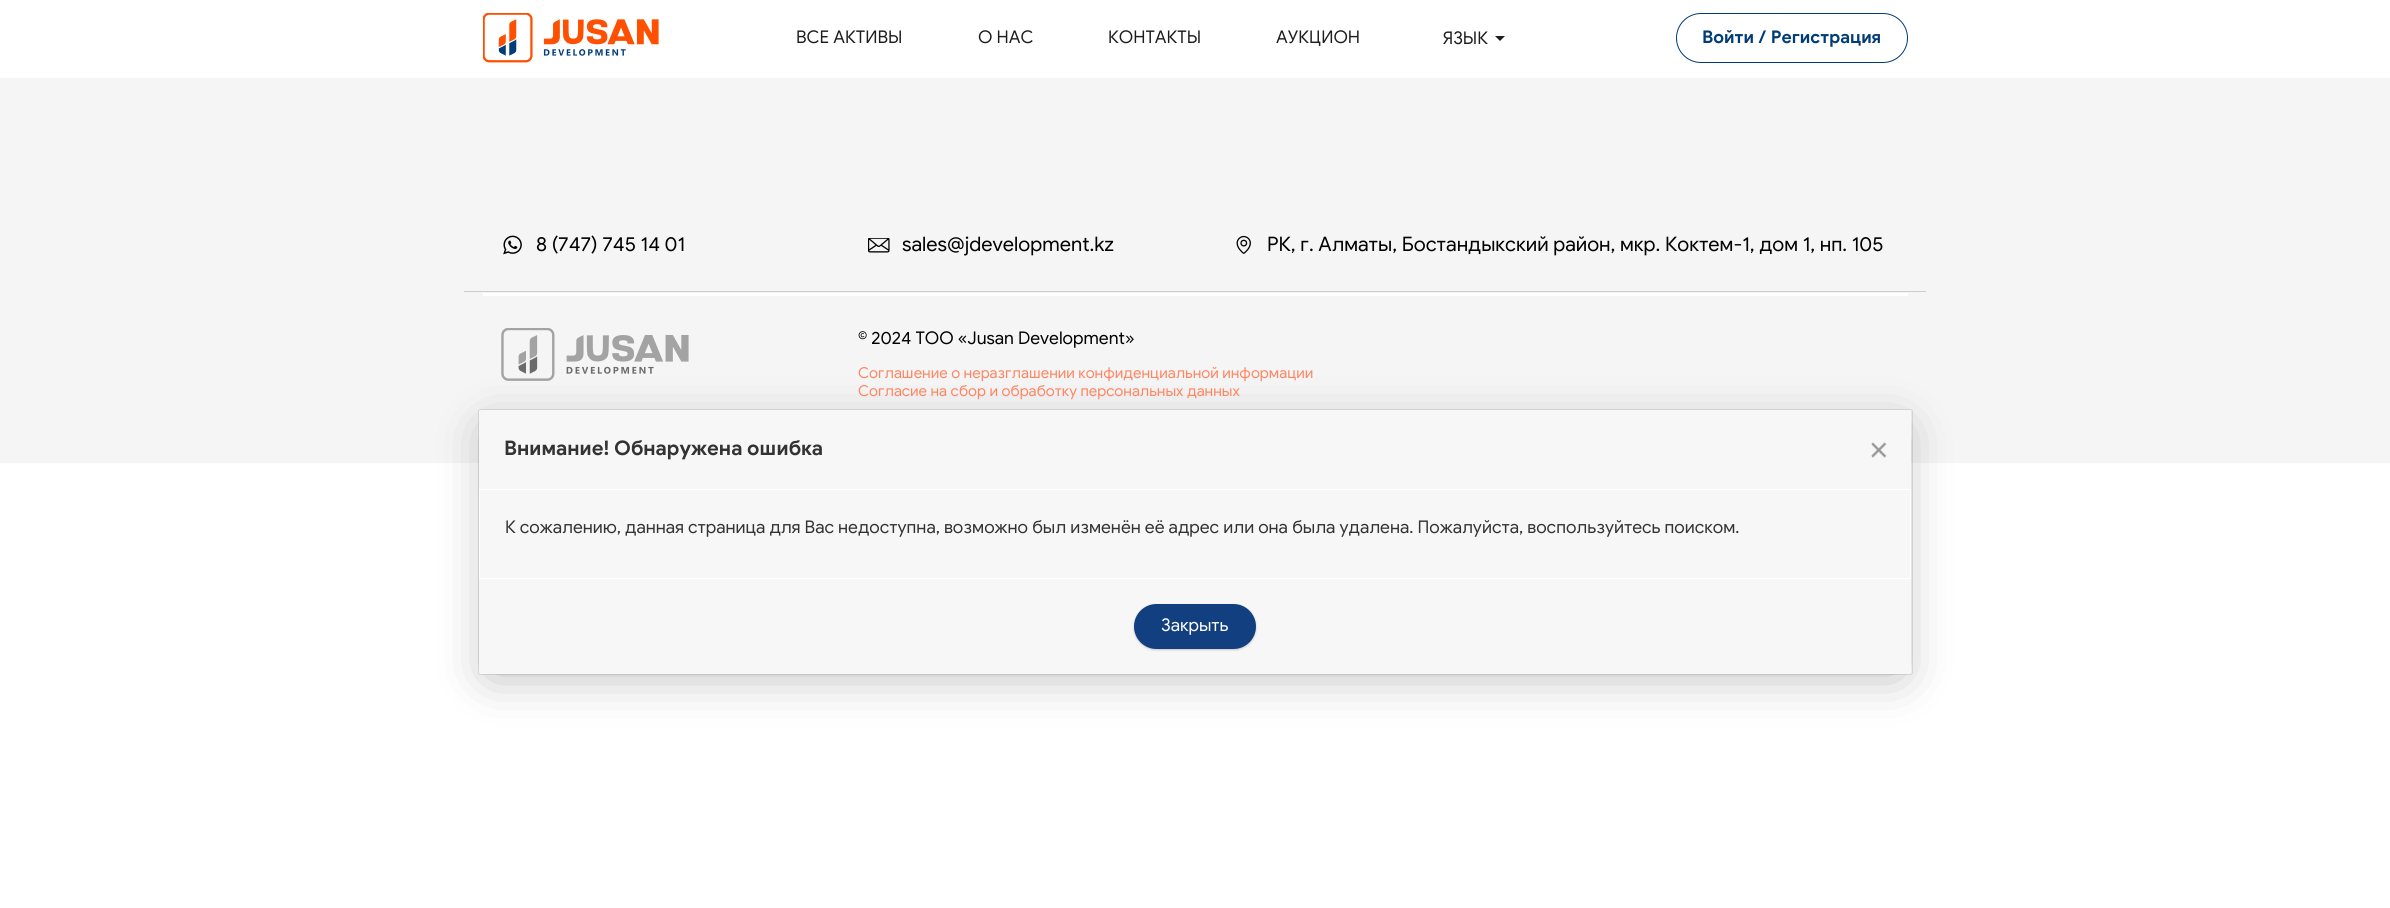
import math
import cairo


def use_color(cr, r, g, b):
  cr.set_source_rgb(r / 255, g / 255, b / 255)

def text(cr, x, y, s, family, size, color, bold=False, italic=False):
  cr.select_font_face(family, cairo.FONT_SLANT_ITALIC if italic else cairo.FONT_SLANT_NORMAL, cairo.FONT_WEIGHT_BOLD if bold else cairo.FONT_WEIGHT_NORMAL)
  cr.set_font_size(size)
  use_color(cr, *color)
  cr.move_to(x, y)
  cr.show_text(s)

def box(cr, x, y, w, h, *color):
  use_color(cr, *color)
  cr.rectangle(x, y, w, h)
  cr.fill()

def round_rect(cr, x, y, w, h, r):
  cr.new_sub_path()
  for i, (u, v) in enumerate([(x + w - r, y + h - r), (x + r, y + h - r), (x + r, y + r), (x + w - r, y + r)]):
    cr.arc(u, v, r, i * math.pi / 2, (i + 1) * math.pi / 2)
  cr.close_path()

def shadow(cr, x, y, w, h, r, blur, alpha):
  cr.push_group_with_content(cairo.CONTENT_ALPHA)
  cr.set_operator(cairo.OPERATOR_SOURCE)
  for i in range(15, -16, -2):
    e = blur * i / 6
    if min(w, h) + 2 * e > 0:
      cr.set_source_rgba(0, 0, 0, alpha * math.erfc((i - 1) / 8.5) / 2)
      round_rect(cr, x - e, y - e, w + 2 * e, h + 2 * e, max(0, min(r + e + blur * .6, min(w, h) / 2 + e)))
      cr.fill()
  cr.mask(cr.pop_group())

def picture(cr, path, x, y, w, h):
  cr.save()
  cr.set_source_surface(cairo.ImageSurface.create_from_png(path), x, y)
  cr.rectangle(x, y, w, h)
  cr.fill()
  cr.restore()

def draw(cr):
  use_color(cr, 255, 255, 255)
  cr.paint()
  picture(cr, "img_01.png", 483, 13, 176, 50)
  use_color(cr, 29, 29, 31)
  cr.new_path()
  cr.move_to(1495, 36)
  cr.line_to(1505, 36)
  cr.line_to(1500, 41)
  cr.close_path()
  cr.fill()
  round_rect(cr, 1676.5, 13.5, 231, 49, 24.5)
  use_color(cr, 0, 60, 120)
  cr.set_line_width(1)
  cr.stroke()
  box(cr, 0, 78, 2390, 385, 245, 245, 245)
  box(cr, 464, 291, 1462, 1, 204, 204, 204)
  picture(cr, "img_02.png", 503, 235, 19, 20)
  picture(cr, "img_03.png", 868, 238, 22, 15)
  picture(cr, "img_04.png", 1236, 235, 15, 19)
  box(cr, 483, 293, 1425, 3, 255, 255, 255)
  picture(cr, "img_05.png", 501, 328, 188, 53)
  use_color(cr, 0, 0, 0)
  shadow(cr, 490, 431, 1410, 242, 0, 25, 0.3)
  use_color(cr, 247, 247, 247)
  round_rect(cr, 479, 410, 1432, 264, 1)
  cr.fill()
  round_rect(cr, 478.5, 409.5, 1434, 265, 2)
  cr.set_source_rgba(0, 0, 0, 0.1)
  cr.stroke()
  picture(cr, "img_06.png", 1871, 442, 16, 16)
  cr.rectangle(479.5, 489.5, 1431, 89)
  use_color(cr, 255, 255, 255)
  cr.stroke()
  use_color(cr, 0, 0, 0)
  shadow(cr, 1134, 605, 122, 45, 22.5, 1, 0.2)
  use_color(cr, 18, 63, 128)
  round_rect(cr, 1134, 604, 122, 45, 22.5)
  cr.fill()
  text(cr, 796, 43, "ВСЕ АКТИВЫ", "Google Sans", 17.5, (29, 29, 31))
  text(cr, 978, 43, "О НАС", "Google Sans", 17.5, (29, 29, 31))
  text(cr, 1108, 43, "КОНТАКТЫ", "Google Sans", 17.5, (29, 29, 31))
  text(cr, 1276, 43, "АУКЦИОН", "Google Sans", 17.5, (29, 29, 31))
  text(cr, 1443, 44, "ЯЗЫК", "Google Sans", 17.5, (29, 29, 31))
  text(cr, 1702, 43, "Войти / Регистрация", "Google Sans", 17.5, (0, 60, 120), bold=True)
  text(cr, 536, 251, "8 (747) 745 14 01", "Google Sans", 20, (0, 0, 0))
  text(cr, 902, 251, "sales@jdevelopment.kz", "Google Sans", 20, (0, 0, 0))
  text(cr, 1267, 251, "РК, г. Алматы, Бостандыкский район, мкр. Коктем-1, дом 1, нп. 105", "Google Sans", 20, (0, 0, 0))
  text(cr, 858, 344, "© 2024 ТОО «Jusan Development»", "Google Sans", 17.5, (0, 0, 0))
  text(cr, 858, 378, "Соглашение о неразглашении конфиденциальной информации", "Google Sans", 15, (255, 133, 98))
  text(cr, 858, 396, "Согласие на сбор и обработку персональных данных", "Google Sans", 15, (255, 133, 98))
  text(cr, 504, 455, "Внимание! Обнаружена ошибка", "Google Sans", 20.1, (51, 51, 51), bold=True)
  text(cr, 505, 533, "К сожалению, данная страница для Вас недоступна, возможно был изменён её адрес или она была удалена. Пожалуйста, воспользуйтесь поиском.", "Google Sans", 17.5, (51, 51, 51))
  text(cr, 1161, 631, "Закрыть", "Google Sans", 17.5, (255, 255, 255))


surface = cairo.ImageSurface(cairo.FORMAT_RGB24, 2390, 908)
cr = cairo.Context(surface)
options = cairo.FontOptions()
options.set_hint_metrics(cairo.HINT_METRICS_OFF)
options.set_hint_style(cairo.HINT_STYLE_NONE)
cr.set_font_options(options)
cr.set_miter_limit(4)
draw(cr)
surface.write_to_png("out.png")
